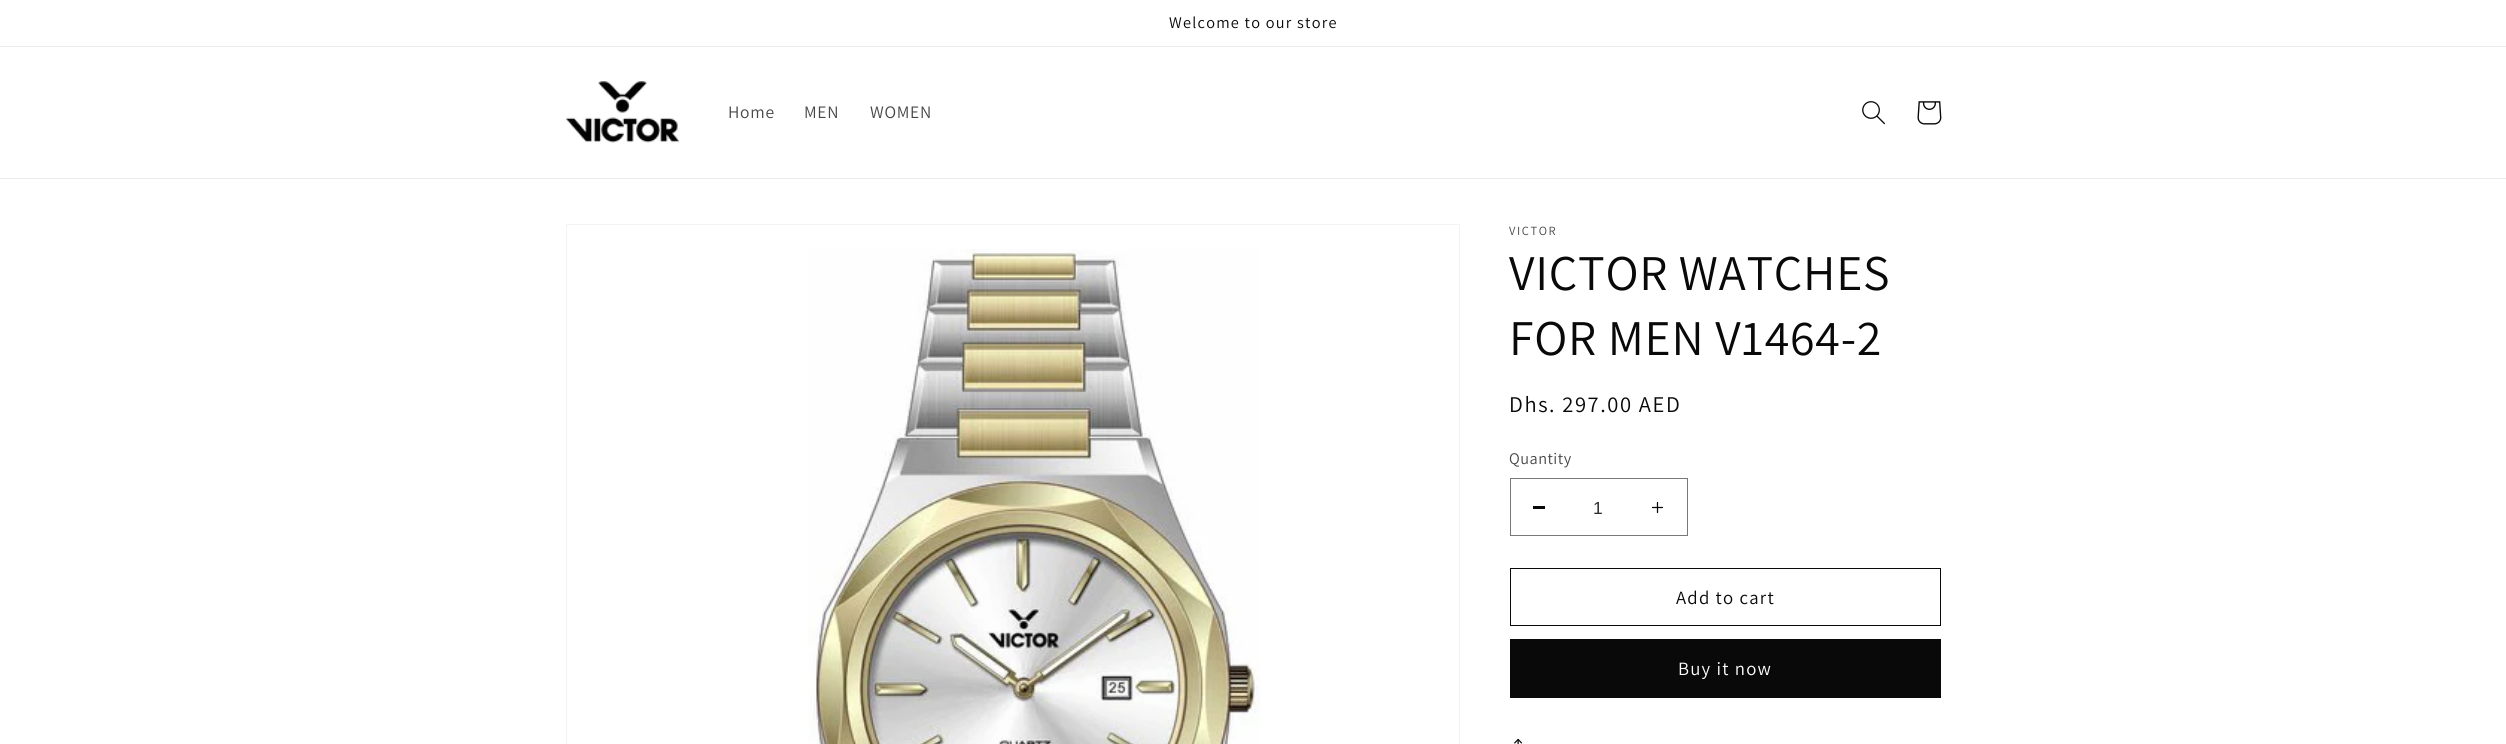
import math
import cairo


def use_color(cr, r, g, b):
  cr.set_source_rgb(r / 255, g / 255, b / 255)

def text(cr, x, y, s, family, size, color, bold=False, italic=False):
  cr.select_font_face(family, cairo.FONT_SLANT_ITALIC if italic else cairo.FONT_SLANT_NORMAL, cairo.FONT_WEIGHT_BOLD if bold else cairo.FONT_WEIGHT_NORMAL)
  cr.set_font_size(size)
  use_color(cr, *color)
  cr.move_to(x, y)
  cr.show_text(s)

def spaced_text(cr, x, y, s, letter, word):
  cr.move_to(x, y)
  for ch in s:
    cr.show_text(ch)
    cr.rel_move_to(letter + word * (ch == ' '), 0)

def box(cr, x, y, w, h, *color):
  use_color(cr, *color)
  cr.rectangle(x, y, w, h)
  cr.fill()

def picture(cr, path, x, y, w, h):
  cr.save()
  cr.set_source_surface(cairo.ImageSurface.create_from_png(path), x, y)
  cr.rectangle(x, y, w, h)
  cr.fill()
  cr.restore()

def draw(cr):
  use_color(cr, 255, 255, 255)
  cr.paint()
  box(cr, 0, 46, 2506, 1, 235, 235, 235)
  box(cr, 0, 178, 2506, 1, 235, 235, 235)
  picture(cr, "img_01.png", 566, 81, 113, 62)
  picture(cr, "img_02.png", 1862, 101, 23, 24)
  picture(cr, "img_03.png", 1917, 101, 25, 24)
  cr.rectangle(566.5, 224.5, 893, 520)
  use_color(cr, 243, 243, 243)
  cr.set_line_width(1)
  cr.stroke()
  picture(cr, "img_04.png", 808, 249, 453, 495)
  box(cr, 1533, 506, 12, 3, 10, 9, 9)
  picture(cr, "img_05.png", 1651, 501, 13, 13)
  cr.rectangle(1510.5, 478.5, 177, 57)
  use_color(cr, 120, 120, 120)
  cr.stroke()
  cr.rectangle(1510.5, 568.5, 430, 57)
  use_color(cr, 10, 9, 9)
  cr.stroke()
  box(cr, 1510, 639, 431, 59, 10, 9, 9)
  picture(cr, "img_06.png", 1514, 738, 9, 6)
  cr.select_font_face("Assistant")
  cr.set_font_size(16.25)
  spaced_text(cr, 1169, 28, "Welcome to our store", 1.25, 0)
  cr.set_font_size(17.5)
  use_color(cr, 71, 71, 71)
  spaced_text(cr, 728, 118, "Home", 0.75, 0)
  spaced_text(cr, 804, 118, "MEN", 0.75, 0)
  spaced_text(cr, 870, 118, "WOMEN", 0.75, 0)
  cr.set_font_size(12.5)
  spaced_text(cr, 1509, 235, "VICTOR", 1.6, 0)
  cr.set_font_size(50)
  use_color(cr, 10, 9, 9)
  spaced_text(cr, 1509, 290, "VICTOR WATCHES", 0.75, 0)
  spaced_text(cr, 1509, 355, "FOR MEN V1464-2", 0.75, 0)
  cr.set_font_size(22.5)
  spaced_text(cr, 1509, 412, "Dhs. 297.00 AED", 1.6, 0)
  cr.set_font_size(16.25)
  use_color(cr, 71, 71, 71)
  spaced_text(cr, 1509, 464, "Quantity", 0.5, 0)
  text(cr, 1593, 514, "1", "Liberation Sans", 17.5, (47, 46, 46))
  cr.select_font_face("Assistant")
  cr.set_font_size(18.75)
  use_color(cr, 10, 9, 9)
  spaced_text(cr, 1676, 604, "Add to cart", 1.25, 0)
  use_color(cr, 255, 255, 255)
  spaced_text(cr, 1678, 675, "Buy it now", 1.25, 0)


surface = cairo.ImageSurface(cairo.FORMAT_RGB24, 2506, 744)
cr = cairo.Context(surface)
options = cairo.FontOptions()
options.set_hint_metrics(cairo.HINT_METRICS_OFF)
options.set_hint_style(cairo.HINT_STYLE_NONE)
cr.set_font_options(options)
cr.set_miter_limit(4)
draw(cr)
surface.write_to_png("out.png")
